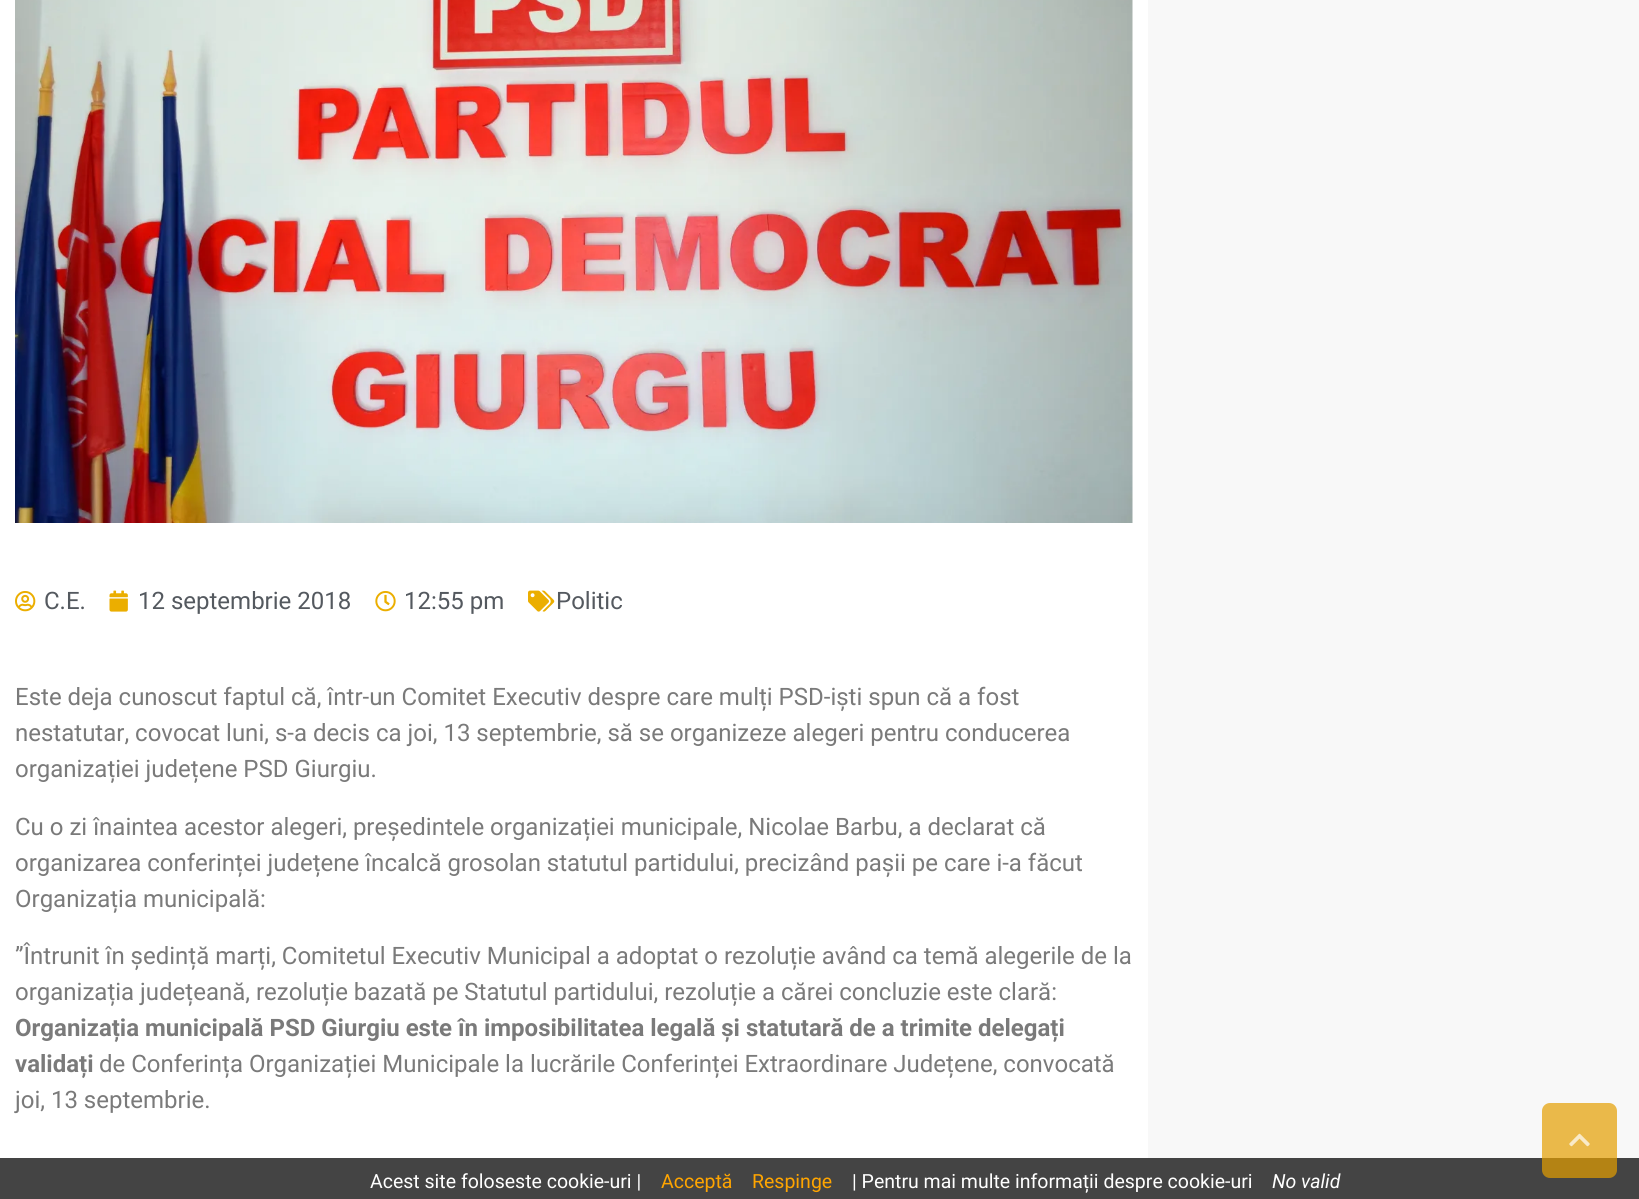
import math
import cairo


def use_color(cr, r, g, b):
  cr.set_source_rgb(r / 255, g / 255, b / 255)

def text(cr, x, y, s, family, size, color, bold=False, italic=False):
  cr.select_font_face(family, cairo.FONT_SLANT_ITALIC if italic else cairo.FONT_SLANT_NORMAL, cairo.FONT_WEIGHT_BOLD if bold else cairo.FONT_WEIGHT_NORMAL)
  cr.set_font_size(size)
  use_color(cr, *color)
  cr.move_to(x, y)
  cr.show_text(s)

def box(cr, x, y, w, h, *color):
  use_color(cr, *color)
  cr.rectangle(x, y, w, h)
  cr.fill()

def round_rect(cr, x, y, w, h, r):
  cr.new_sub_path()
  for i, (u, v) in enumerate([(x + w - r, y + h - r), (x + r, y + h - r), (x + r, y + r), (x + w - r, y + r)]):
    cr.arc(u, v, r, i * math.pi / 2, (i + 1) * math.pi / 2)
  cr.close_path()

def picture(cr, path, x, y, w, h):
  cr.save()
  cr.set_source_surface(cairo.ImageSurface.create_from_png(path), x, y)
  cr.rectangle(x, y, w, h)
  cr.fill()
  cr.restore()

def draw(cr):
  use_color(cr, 255, 255, 255)
  cr.paint()
  picture(cr, "img_01.png", 15, 0, 1118, 523)
  picture(cr, "img_02.png", 15, 591, 21, 21)
  picture(cr, "img_03.png", 109, 590, 19, 22)
  picture(cr, "img_04.png", 375, 591, 21, 21)
  picture(cr, "img_05.png", 528, 590, 27, 22)
  box(cr, 1148, 0, 491, 1158, 248, 248, 248)
  box(cr, 0, 1158, 1639, 41, 68, 68, 68)
  cr.set_source_rgba(0.898, 0.62, 0, 0.7)
  round_rect(cr, 1542, 1103, 75, 75, 8)
  cr.fill()
  picture(cr, "img_06.png", 1569, 1133, 21, 14)
  text(cr, 44, 609, "C.E.", "Roboto", 24, (84, 89, 95))
  text(cr, 138, 609, "12 septembrie 2018", "Roboto", 24, (84, 89, 95))
  text(cr, 404, 609, "12:55 pm", "Roboto", 24, (84, 89, 95))
  text(cr, 556, 609, "Politic", "Roboto", 24, (84, 89, 95))
  text(cr, 15, 705, "Este deja cunoscut faptul că, într-un Comitet Executiv despre care mulți PSD-iști spun că a fost", "Roboto", 24, (122, 122, 122))
  text(cr, 15, 741, "nestatutar, covocat luni, s-a decis ca joi, 13 septembrie, să se organizeze alegeri pentru conducerea", "Roboto", 24, (122, 122, 122))
  text(cr, 15, 777, "organizației județene PSD Giurgiu.", "Roboto", 24, (122, 122, 122))
  text(cr, 15, 835, "Cu o zi înaintea acestor alegeri, președintele organizației municipale, Nicolae Barbu, a declarat că", "Roboto", 24, (122, 122, 122))
  text(cr, 15, 871, "organizarea conferinței județene încalcă grosolan statutul partidului, precizând pașii pe care i-a făcut", "Roboto", 24, (122, 122, 122))
  text(cr, 15, 907, "Organizația municipală:", "Roboto", 24, (122, 122, 122))
  text(cr, 15, 964, "”Întrunit în ședință marți, Comitetul Executiv Municipal a adoptat o rezoluție având ca temă alegerile de la", "Roboto", 24, (122, 122, 122))
  text(cr, 15, 1000, "organizația județeană, rezoluție bazată pe Statutul partidului, rezoluție a cărei concluzie este clară:", "Roboto", 24, (122, 122, 122))
  text(cr, 15, 1036, "Organizația municipală PSD Giurgiu este în imposibilitatea legală și statutară de a trimite delegați", "Roboto", 24, (122, 122, 122), bold=True)
  text(cr, 15, 1072, "validați", "Roboto", 24, (122, 122, 122), bold=True)
  text(cr, 99, 1072, "de Conferința Organizației Municipale la lucrările Conferinței Extraordinare Județene, convocată", "Roboto", 24, (122, 122, 122))
  text(cr, 15, 1108, "joi, 13 septembrie.", "Roboto", 24, (122, 122, 122))
  text(cr, 370, 1188, "Acest site foloseste cookie-uri |", "Roboto", 19.5, (255, 255, 255))
  text(cr, 661, 1188, "Acceptă", "Roboto", 19.5, (255, 165, 0))
  text(cr, 752, 1188, "Respinge", "Roboto", 19.5, (255, 165, 0))
  text(cr, 852, 1188, "| Pentru mai multe informații despre cookie-uri", "Roboto", 19.5, (255, 255, 255))
  text(cr, 1272, 1188, "No valid", "Roboto", 19.5, (255, 255, 255), italic=True)


surface = cairo.ImageSurface(cairo.FORMAT_RGB24, 1639, 1199)
cr = cairo.Context(surface)
options = cairo.FontOptions()
options.set_hint_metrics(cairo.HINT_METRICS_OFF)
options.set_hint_style(cairo.HINT_STYLE_NONE)
cr.set_font_options(options)
cr.set_miter_limit(4)
draw(cr)
surface.write_to_png("out.png")
